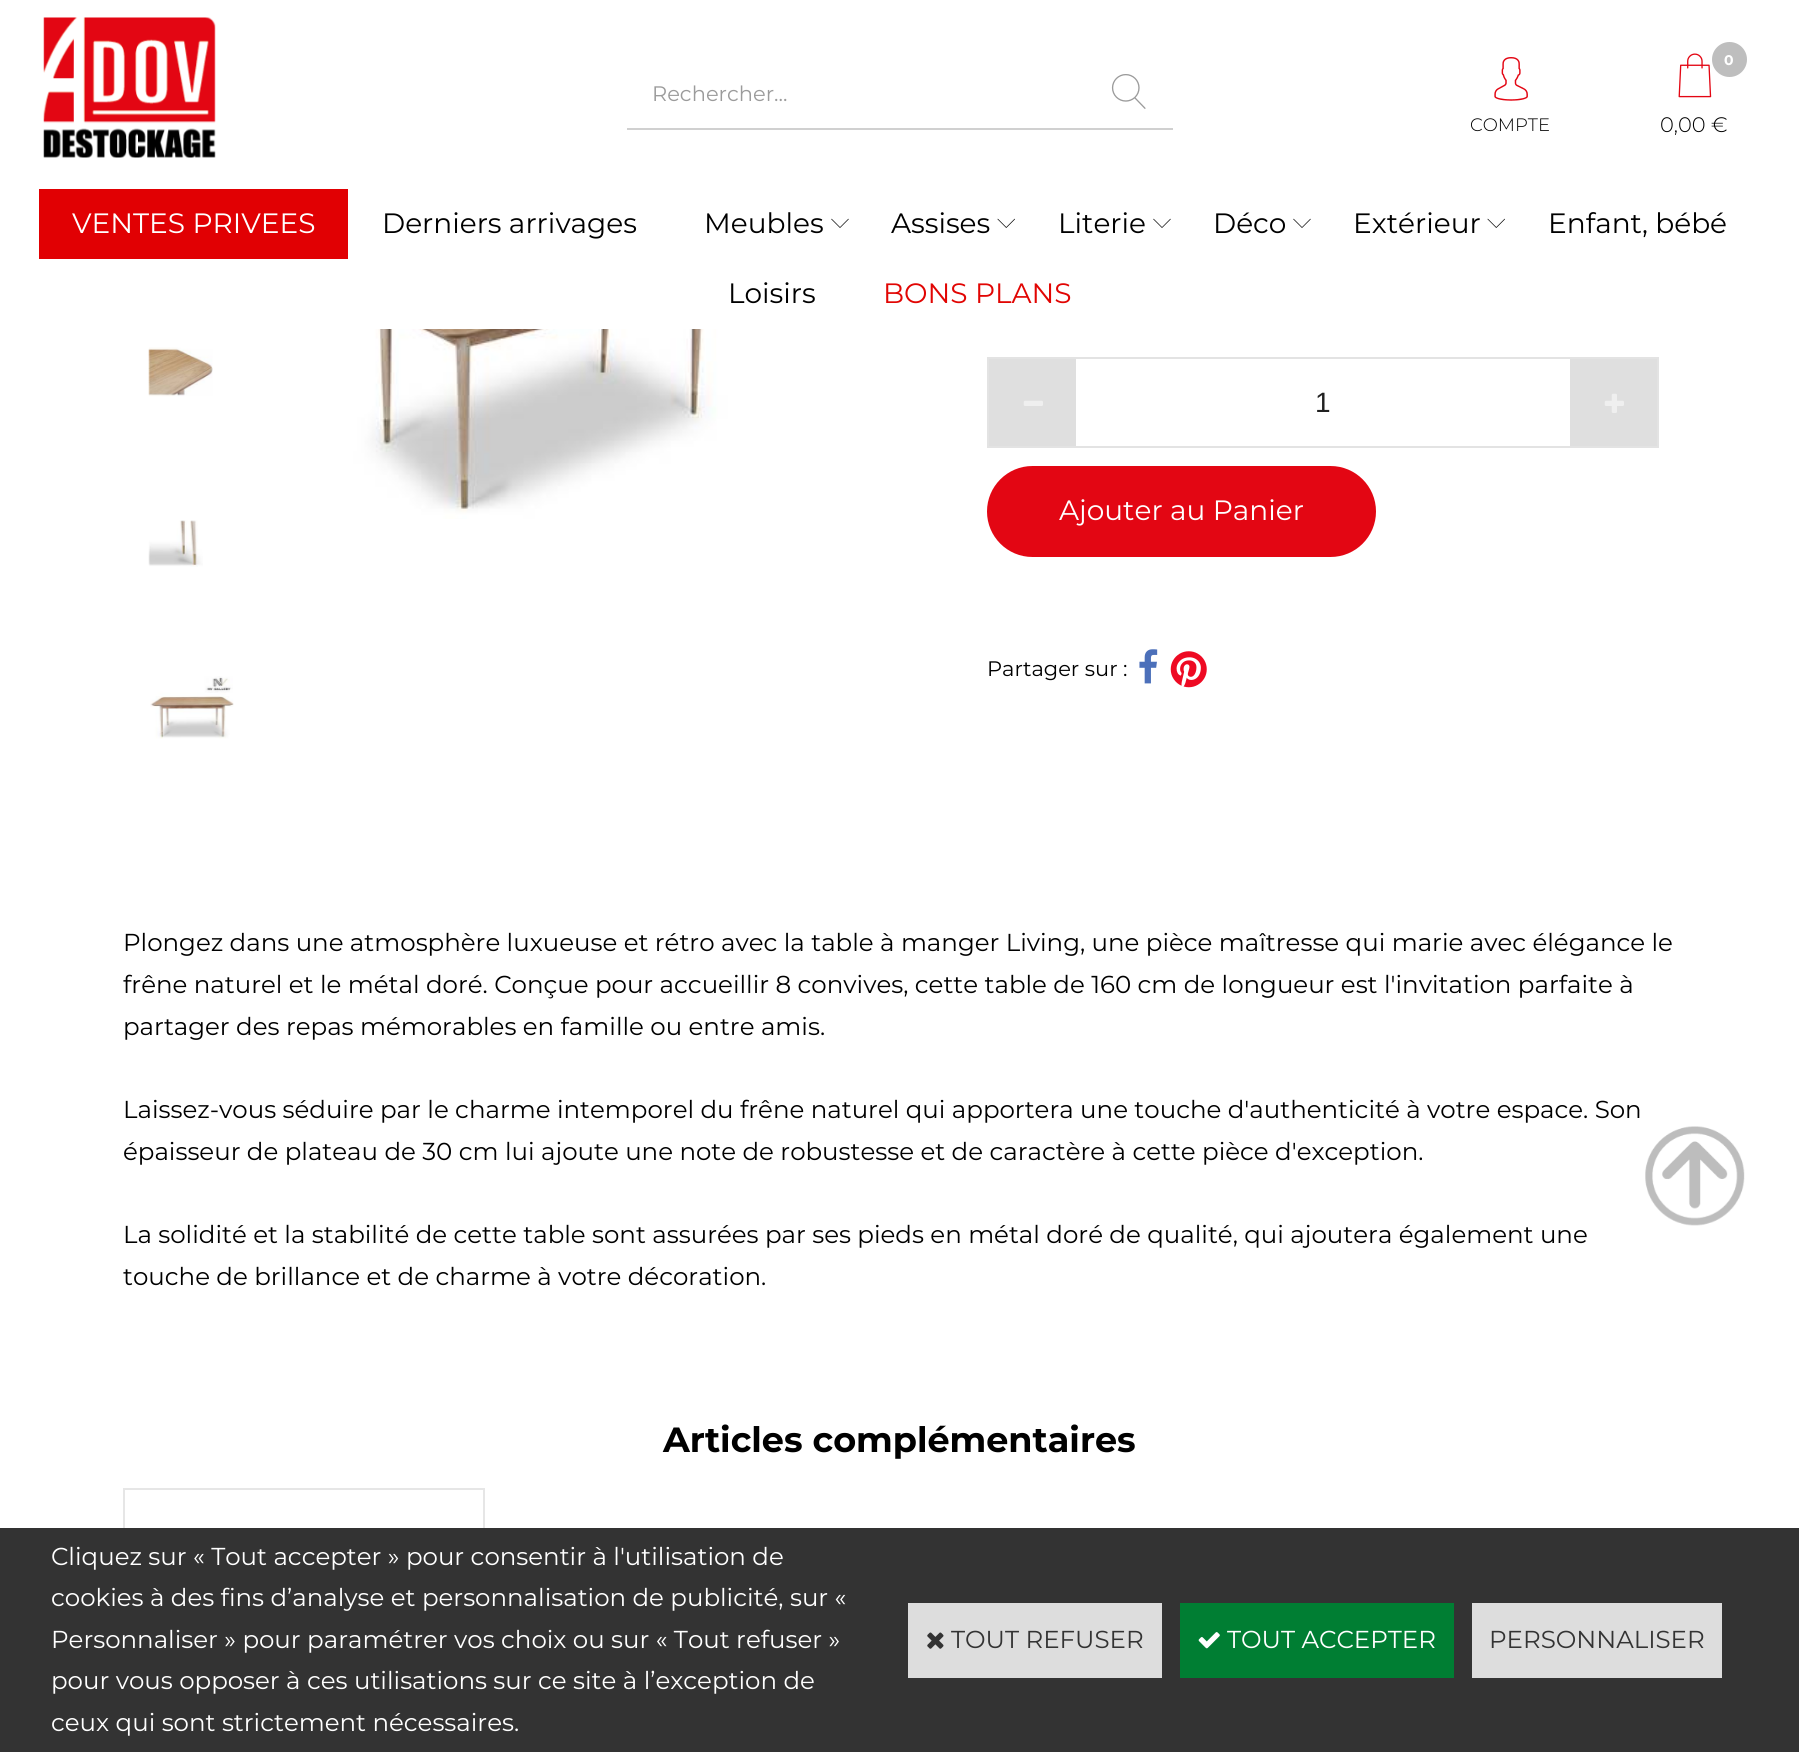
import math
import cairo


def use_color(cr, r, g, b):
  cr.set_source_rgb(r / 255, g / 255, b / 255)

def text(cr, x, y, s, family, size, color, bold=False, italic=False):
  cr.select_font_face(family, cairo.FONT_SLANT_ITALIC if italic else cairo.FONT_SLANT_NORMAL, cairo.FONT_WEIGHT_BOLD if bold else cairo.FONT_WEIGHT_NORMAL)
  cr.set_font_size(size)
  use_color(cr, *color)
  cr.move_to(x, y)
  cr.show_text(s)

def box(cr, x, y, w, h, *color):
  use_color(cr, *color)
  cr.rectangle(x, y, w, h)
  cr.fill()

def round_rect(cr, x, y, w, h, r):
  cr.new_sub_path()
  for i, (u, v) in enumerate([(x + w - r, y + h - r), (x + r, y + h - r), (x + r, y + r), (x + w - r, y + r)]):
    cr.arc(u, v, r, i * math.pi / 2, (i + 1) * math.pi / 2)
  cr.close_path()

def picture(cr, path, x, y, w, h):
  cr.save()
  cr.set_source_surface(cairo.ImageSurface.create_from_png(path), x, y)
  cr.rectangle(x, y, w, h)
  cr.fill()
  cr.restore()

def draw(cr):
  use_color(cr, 255, 255, 255)
  cr.paint()
  picture(cr, "img_01.png", 43, 17, 173, 141)
  box(cr, 627, 128, 546, 2, 208, 208, 208)
  picture(cr, "img_02.png", 1111, 74, 35, 35)
  picture(cr, "img_03.png", 1494, 57, 34, 44)
  picture(cr, "img_04.png", 1678, 53, 34, 45)
  use_color(cr, 190, 190, 190)
  cr.arc(1729.5, 59.5, 17.5, 0, 2 * math.pi)
  cr.fill()
  box(cr, 39, 189, 309, 70, 225, 0, 3)
  picture(cr, "img_05.png", 831, 218, 18, 10)
  picture(cr, "img_06.png", 997, 218, 18, 10)
  picture(cr, "img_05.png", 1153, 218, 18, 10)
  picture(cr, "img_05.png", 1293, 218, 18, 10)
  picture(cr, "img_06.png", 1487, 218, 18, 10)
  picture(cr, "img_07.png", 148, 347, 65, 50)
  picture(cr, "img_08.png", 148, 520, 55, 47)
  picture(cr, "img_09.png", 150, 676, 84, 63)
  picture(cr, "img_10.png", 331, 329, 420, 190)
  cr.rectangle(988, 358, 670, 89)
  use_color(cr, 227, 227, 227)
  cr.stroke()
  box(cr, 989, 359, 87, 87, 223, 223, 223)
  picture(cr, "img_11.png", 1023, 400, 20, 6)
  box(cr, 1570, 359, 87, 87, 223, 223, 223)
  picture(cr, "img_12.png", 1604, 393, 20, 20)
  use_color(cr, 227, 6, 19)
  round_rect(cr, 988, 467, 387, 89, 44.5)
  cr.fill_preserve()
  cr.stroke()
  picture(cr, "img_13.png", 1139, 649, 19, 35)
  picture(cr, "img_14.png", 1170, 651, 37, 37)
  cr.rectangle(124, 1489, 360, 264)
  use_color(cr, 230, 230, 230)
  cr.stroke()
  picture(cr, "img_15.png", 1645, 1126, 100, 100)
  box(cr, 0, 1528, 1799, 224, 51, 51, 51)
  box(cr, 908, 1603, 254, 75, 221, 221, 221)
  picture(cr, "img_16.png", 927, 1632, 17, 17)
  box(cr, 1180, 1603, 274, 75, 0, 126, 51)
  picture(cr, "img_17.png", 1198, 1632, 22, 17)
  box(cr, 1472, 1603, 250, 75, 221, 221, 221)
  text(cr, 652, 101, "Rechercher...", "Montserrat", 21, (155, 155, 155))
  text(cr, 1470, 131, "COMPTE", "Montserrat Light", 18, (0, 0, 0))
  text(cr, 1724, 65, "0", "Montserrat", 14, (255, 255, 255), bold=True)
  text(cr, 1660, 132, "0,00 €", "Montserrat Light", 21, (0, 0, 0))
  text(cr, 72, 233, "VENTES PRIVEES", "Montserrat", 28, (255, 255, 255))
  text(cr, 382, 233, "Derniers arrivages", "Montserrat", 28, (0, 0, 0))
  text(cr, 704, 233, "Meubles", "Montserrat", 28, (0, 0, 0))
  text(cr, 891, 233, "Assises", "Montserrat", 28, (0, 0, 0))
  text(cr, 1058, 233, "Literie", "Montserrat", 28, (0, 0, 0))
  text(cr, 1213, 233, "Déco", "Montserrat", 28, (0, 0, 0))
  text(cr, 1353, 233, "Extérieur", "Montserrat", 28, (0, 0, 0))
  text(cr, 1548, 233, "Enfant, bébé", "Montserrat", 28, (0, 0, 0))
  text(cr, 728, 303, "Loisirs", "Montserrat", 28, (0, 0, 0))
  text(cr, 883, 303, "BONS PLANS", "Montserrat", 28, (225, 5, 3))
  text(cr, 1315, 412, "1", "Liberation Sans", 28, (33, 33, 33))
  text(cr, 1059, 520, "Ajouter au Panier", "Montserrat", 28, (255, 255, 255))
  text(cr, 987, 676, "Partager sur :", "Montserrat", 21, (0, 0, 0))
  text(cr, 123, 951, "Plongez dans une atmosphère luxueuse et rétro avec la table à manger Living, une pièce maîtresse qui marie avec élégance le", "Montserrat", 24.5, (0, 0, 0))
  text(cr, 123, 993, "frêne naturel et le métal doré. Conçue pour accueillir 8 convives, cette table de 160 cm de longueur est l'invitation parfaite à", "Montserrat", 24.5, (0, 0, 0))
  text(cr, 123, 1035, "partager des repas mémorables en famille ou entre amis.", "Montserrat", 24.5, (0, 0, 0))
  text(cr, 123, 1118, "Laissez-vous séduire par le charme intemporel du frêne naturel qui apportera une touche d'authenticité à votre espace. Son", "Montserrat", 24.5, (0, 0, 0))
  text(cr, 123, 1160, "épaisseur de plateau de 30 cm lui ajoute une note de robustesse et de caractère à cette pièce d'exception.", "Montserrat", 24.5, (0, 0, 0))
  text(cr, 123, 1243, "La solidité et la stabilité de cette table sont assurées par ses pieds en métal doré de qualité, qui ajoutera également une", "Montserrat", 24.5, (0, 0, 0))
  text(cr, 123, 1285, "touche de brillance et de charme à votre décoration.", "Montserrat", 24.5, (0, 0, 0))
  text(cr, 663, 1452, "Articles complémentaires", "Montserrat", 35, (0, 0, 0), bold=True)
  text(cr, 51, 1565, "Cliquez sur « Tout accepter » pour consentir à l'utilisation de", "Montserrat", 24.5, (255, 255, 255))
  text(cr, 51, 1606, "cookies à des fins d’analyse et personnalisation de publicité, sur «", "Montserrat", 24.5, (255, 255, 255))
  text(cr, 51, 1648, "Personnaliser » pour paramétrer vos choix ou sur « Tout refuser »", "Montserrat", 24.5, (255, 255, 255))
  text(cr, 51, 1689, "pour vous opposer à ces utilisations sur ce site à l’exception de", "Montserrat", 24.5, (255, 255, 255))
  text(cr, 51, 1731, "ceux qui sont strictement nécessaires.", "Montserrat", 24.5, (255, 255, 255))
  text(cr, 951, 1648, "TOUT REFUSER", "Montserrat", 24.5, (51, 51, 51))
  text(cr, 1227, 1648, "TOUT ACCEPTER", "Montserrat", 24.5, (255, 255, 255))
  text(cr, 1489, 1648, "PERSONNALISER", "Montserrat", 24.5, (51, 51, 51))


surface = cairo.ImageSurface(cairo.FORMAT_RGB24, 1799, 1752)
cr = cairo.Context(surface)
options = cairo.FontOptions()
options.set_hint_metrics(cairo.HINT_METRICS_OFF)
options.set_hint_style(cairo.HINT_STYLE_NONE)
cr.set_font_options(options)
cr.set_miter_limit(4)
draw(cr)
surface.write_to_png("out.png")
